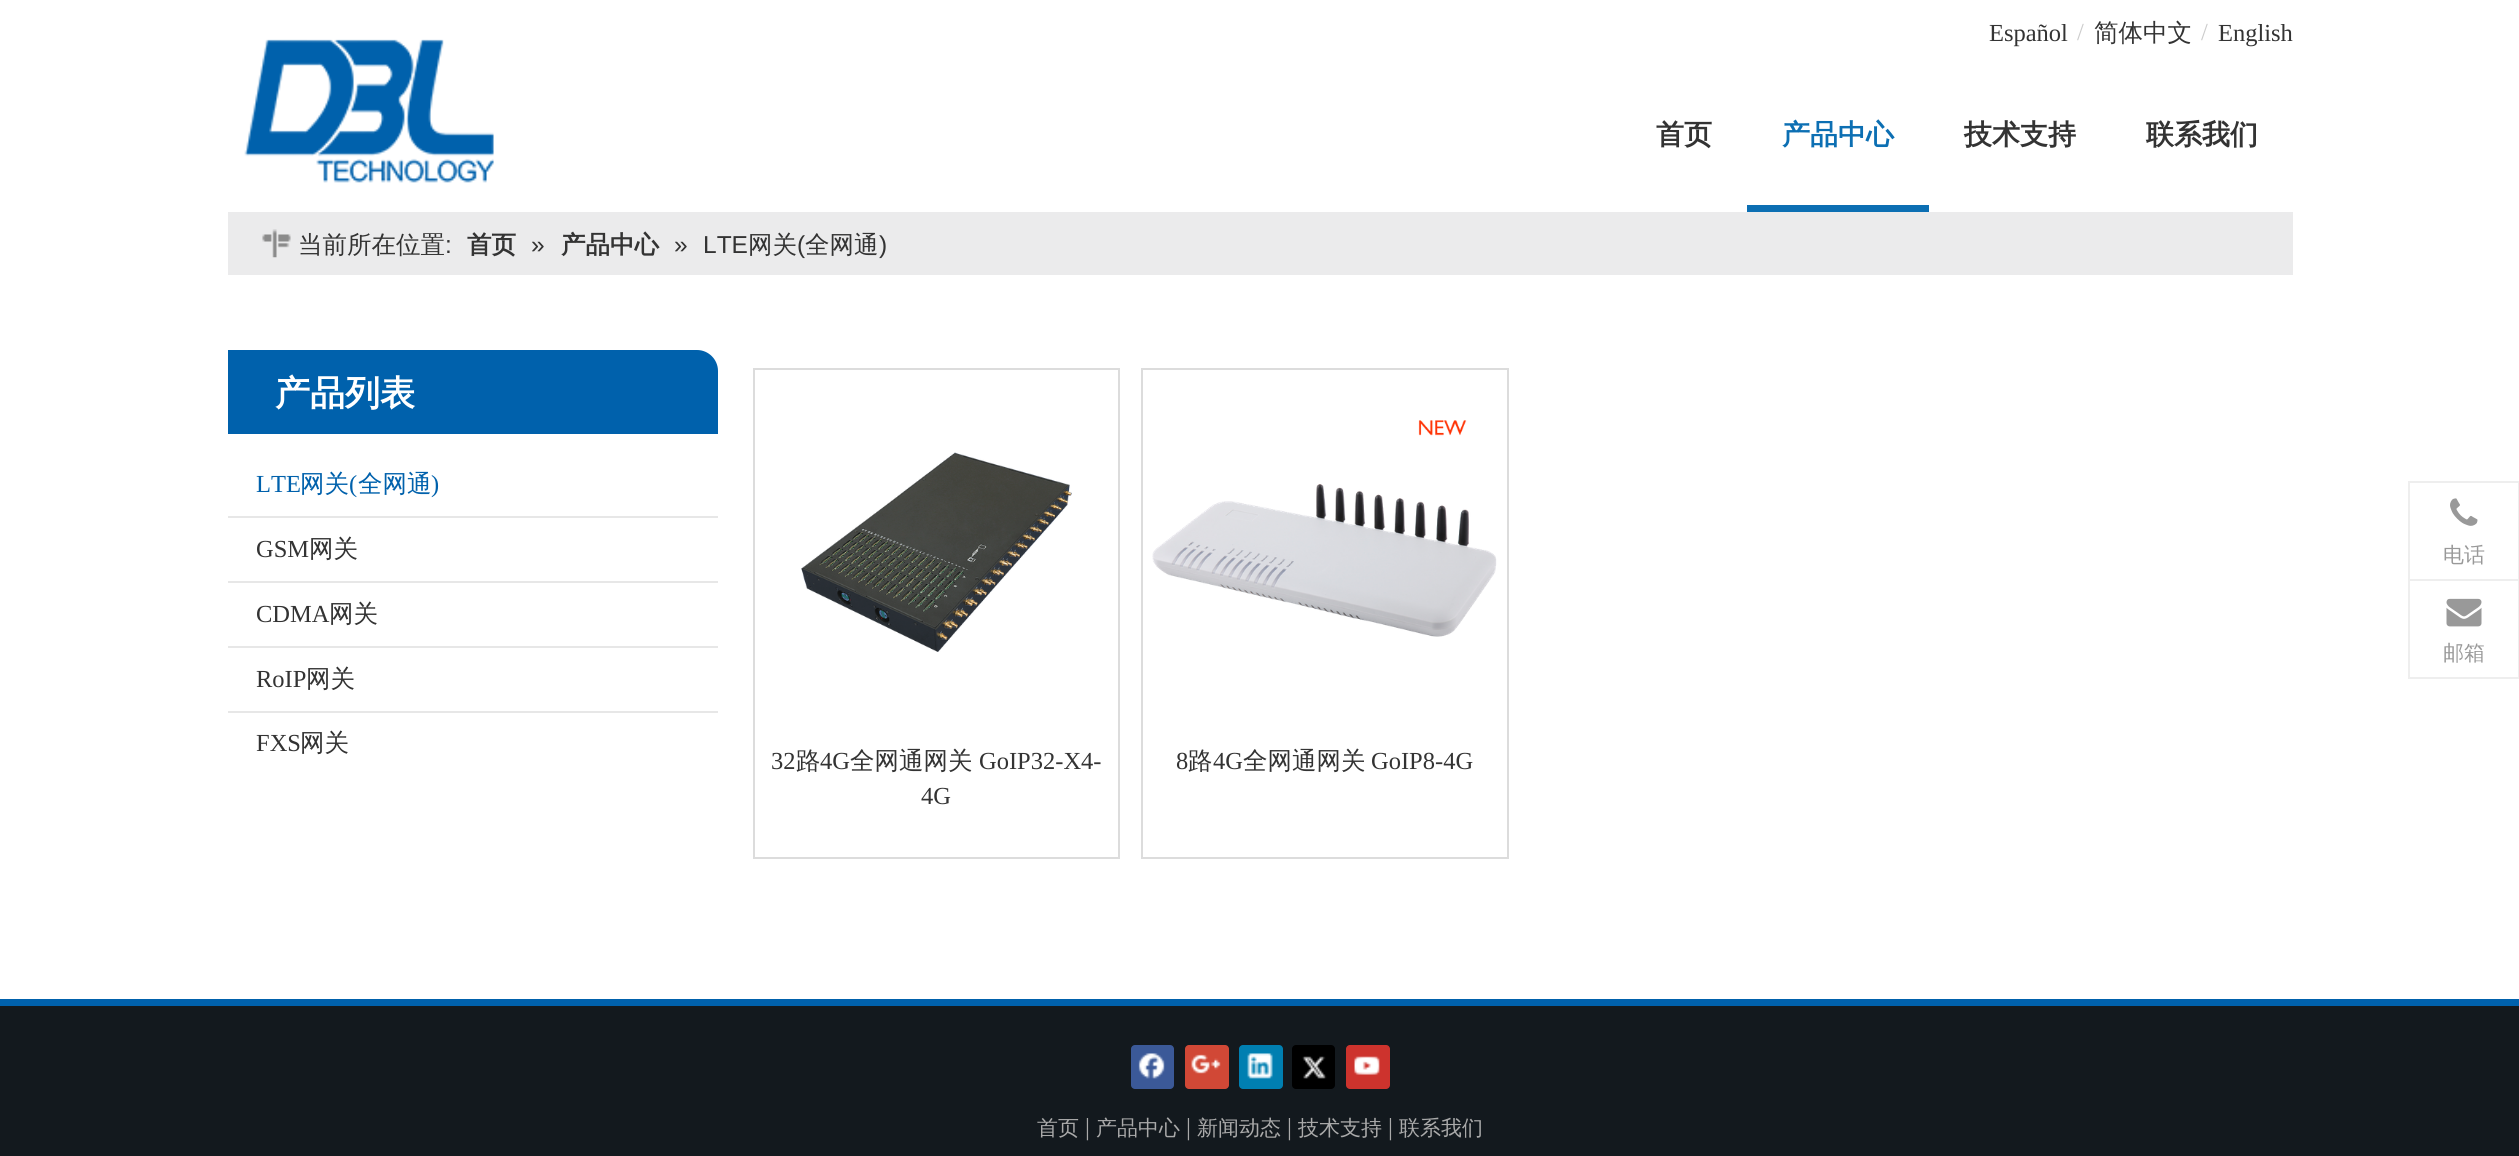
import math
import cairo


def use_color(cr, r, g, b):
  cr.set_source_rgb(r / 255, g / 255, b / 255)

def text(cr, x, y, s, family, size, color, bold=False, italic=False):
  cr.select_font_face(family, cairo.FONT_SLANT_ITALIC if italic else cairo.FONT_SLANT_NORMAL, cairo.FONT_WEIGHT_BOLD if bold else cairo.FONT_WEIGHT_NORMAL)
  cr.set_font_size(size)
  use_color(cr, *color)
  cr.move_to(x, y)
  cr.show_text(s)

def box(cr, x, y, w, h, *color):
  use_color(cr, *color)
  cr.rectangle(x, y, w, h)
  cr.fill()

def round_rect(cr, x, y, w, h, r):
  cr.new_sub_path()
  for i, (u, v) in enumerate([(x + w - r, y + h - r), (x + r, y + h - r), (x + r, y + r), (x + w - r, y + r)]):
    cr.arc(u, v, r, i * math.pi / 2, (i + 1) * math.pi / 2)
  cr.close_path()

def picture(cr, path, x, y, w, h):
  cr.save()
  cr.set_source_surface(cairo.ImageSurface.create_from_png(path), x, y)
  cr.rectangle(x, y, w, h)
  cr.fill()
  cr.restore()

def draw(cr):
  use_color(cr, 255, 255, 255)
  cr.paint()
  picture(cr, "img_01.png", 244, 39, 250, 144)
  box(cr, 1747, 205, 182, 7, 12, 111, 179)
  box(cr, 228, 212, 2065, 63, 235, 235, 236)
  picture(cr, "img_02.png", 262, 229, 29, 29)
  use_color(cr, 0, 97, 172)
  cr.new_path()
  cr.move_to(228, 350)
  cr.line_to(697, 350)
  cr.curve_to(708.5, 350, 718, 359.5, 718, 371)
  cr.line_to(718, 434)
  cr.line_to(228, 434)
  cr.close_path()
  cr.fill()
  box(cr, 228, 516, 490, 2, 231, 231, 231)
  box(cr, 228, 581, 490, 2, 231, 231, 231)
  box(cr, 228, 646, 490, 2, 231, 231, 231)
  box(cr, 228, 711, 490, 2, 231, 231, 231)
  cr.rectangle(754, 369, 365, 489)
  use_color(cr, 220, 220, 220)
  cr.stroke()
  picture(cr, "img_03.png", 801, 452, 271, 200)
  cr.rectangle(1142, 369, 366, 489)
  cr.stroke()
  picture(cr, "img_04.png", 1152, 420, 345, 217)
  box(cr, 0, 1006, 2519, 150, 19, 25, 30)
  box(cr, 0, 999, 2519, 7, 0, 97, 172)
  box(cr, 2408, 481, 111, 2, 238, 238, 238)
  box(cr, 2518, 481, 1, 98, 238, 238, 238)
  box(cr, 2408, 481, 2, 98, 238, 238, 238)
  picture(cr, "img_05.png", 2450, 498, 28, 28)
  cr.rectangle(2409, 580, 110, 98)
  cr.stroke()
  picture(cr, "img_06.png", 2446, 598, 36, 29)
  use_color(cr, 59, 89, 152)
  round_rect(cr, 1131, 1045, 43, 44, 4)
  cr.fill()
  picture(cr, "img_07.png", 1138, 1053, 27, 26)
  use_color(cr, 209, 72, 54)
  round_rect(cr, 1185, 1045, 44, 44, 4)
  cr.fill()
  picture(cr, "img_08.png", 1191, 1054, 30, 20)
  use_color(cr, 0, 127, 177)
  round_rect(cr, 1239, 1045, 44, 44, 4)
  cr.fill()
  picture(cr, "img_09.png", 1247, 1053, 26, 26)
  use_color(cr, 0, 0, 0)
  round_rect(cr, 1292, 1045, 43, 44, 4)
  cr.fill()
  picture(cr, "img_10.png", 1302, 1056, 25, 23)
  use_color(cr, 205, 51, 45)
  round_rect(cr, 1346, 1045, 44, 44, 4)
  cr.fill()
  picture(cr, "img_11.png", 1354, 1056, 26, 19)
  text(cr, 1989, 41, "Español", "Liberation Serif", 24.5, (51, 51, 51))
  text(cr, 2077, 40, "/", "Liberation Serif", 24.5, (204, 204, 204))
  text(cr, 2094, 41, "简体中文", "WenQuanYi Zen Hei Medium", 24.5, (51, 51, 51))
  text(cr, 2201, 40, "/", "Liberation Serif", 24.5, (204, 204, 204))
  text(cr, 2218, 41, "English", "Liberation Serif", 24.5, (51, 51, 51))
  text(cr, 1656, 144, "首页", "WenQuanYi Zen Hei", 28, (51, 51, 51), bold=True)
  text(cr, 1782, 144, "产品中心", "WenQuanYi Zen Hei", 28, (12, 111, 179), bold=True)
  text(cr, 1964, 144, "技术支持", "WenQuanYi Zen Hei", 28, (51, 51, 51), bold=True)
  text(cr, 2146, 144, "联系我们", "WenQuanYi Zen Hei", 28, (51, 51, 51), bold=True)
  text(cr, 298, 253, "当前所在位置", "WenQuanYi Zen Hei Medium", 24.5, (51, 51, 51))
  text(cr, 445, 253, ":", "Liberation Sans", 24.5, (51, 51, 51))
  text(cr, 467, 253, "首页", "WenQuanYi Zen Hei", 24.5, (51, 51, 51), bold=True)
  text(cr, 531, 253, "»", "Liberation Sans", 24.5, (51, 51, 51))
  text(cr, 561, 253, "产品中心", "WenQuanYi Zen Hei", 24.5, (51, 51, 51), bold=True)
  text(cr, 674, 253, "»", "Liberation Sans", 24.5, (51, 51, 51))
  text(cr, 703, 253, "LTE", "Liberation Sans", 24.5, (51, 51, 51))
  text(cr, 748, 253, "网关", "WenQuanYi Zen Hei Medium", 24.5, (51, 51, 51))
  text(cr, 797, 253, "(", "Liberation Sans", 24.5, (51, 51, 51))
  text(cr, 805, 253, "全网通", "WenQuanYi Zen Hei Medium", 24.5, (51, 51, 51))
  text(cr, 879, 253, ")", "Liberation Sans", 24.5, (51, 51, 51))
  text(cr, 275, 405, "产品列表", "WenQuanYi Zen Hei", 35, (255, 255, 255), bold=True)
  text(cr, 256, 492, "LTE", "Liberation Serif", 24.5, (0, 97, 172))
  text(cr, 300, 492, "网关", "WenQuanYi Zen Hei Medium", 24.5, (0, 97, 172))
  text(cr, 349, 492, "(", "Liberation Serif", 24.5, (0, 97, 172))
  text(cr, 358, 492, "全网通", "WenQuanYi Zen Hei Medium", 24.5, (0, 97, 172))
  text(cr, 431, 492, ")", "Liberation Serif", 24.5, (0, 97, 172))
  text(cr, 256, 557, "GSM", "Liberation Serif", 24.5, (51, 51, 51))
  text(cr, 309, 557, "网关", "WenQuanYi Zen Hei Medium", 24.5, (51, 51, 51))
  text(cr, 256, 622, "CDMA", "Liberation Serif", 24.5, (51, 51, 51))
  text(cr, 329, 622, "网关", "WenQuanYi Zen Hei Medium", 24.5, (51, 51, 51))
  text(cr, 256, 687, "RoIP", "Liberation Serif", 24.5, (51, 51, 51))
  text(cr, 306, 687, "网关", "WenQuanYi Zen Hei Medium", 24.5, (51, 51, 51))
  text(cr, 256, 751, "FXS", "Liberation Serif", 24.5, (51, 51, 51))
  text(cr, 300, 751, "网关", "WenQuanYi Zen Hei Medium", 24.5, (51, 51, 51))
  text(cr, 771, 769, "32", "Liberation Serif", 24.5, (51, 51, 51))
  text(cr, 796, 769, "路", "WenQuanYi Zen Hei Medium", 24.5, (51, 51, 51))
  text(cr, 820, 769, "4G", "Liberation Serif", 24.5, (51, 51, 51))
  text(cr, 850, 769, "全网通网关", "WenQuanYi Zen Hei Medium", 24.5, (51, 51, 51))
  text(cr, 979, 769, "GoIP32-X4-", "Liberation Serif", 24.5, (51, 51, 51))
  text(cr, 921, 804, "4G", "Liberation Serif", 24.5, (51, 51, 51))
  text(cr, 1176, 769, "8", "Liberation Serif", 24.5, (51, 51, 51))
  text(cr, 1188, 769, "路", "WenQuanYi Zen Hei Medium", 24.5, (51, 51, 51))
  text(cr, 1213, 769, "4G", "Liberation Serif", 24.5, (51, 51, 51))
  text(cr, 1243, 769, "全网通网关", "WenQuanYi Zen Hei Medium", 24.5, (51, 51, 51))
  text(cr, 1371, 769, "GoIP8-4G", "Liberation Serif", 24.5, (51, 51, 51))
  text(cr, 2443, 562, "电话", "WenQuanYi Zen Hei Medium", 21, (153, 153, 153))
  text(cr, 2443, 660, "邮箱", "WenQuanYi Zen Hei Medium", 21, (153, 153, 153))
  text(cr, 1037, 1135, "首页", "WenQuanYi Zen Hei Medium", 21, (170, 170, 170))
  text(cr, 1085, 1135, "|", "Liberation Serif", 24.5, (170, 170, 170))
  text(cr, 1096, 1135, "产品中心", "WenQuanYi Zen Hei Medium", 21, (170, 170, 170))
  text(cr, 1186, 1135, "|", "Liberation Serif", 24.5, (170, 170, 170))
  text(cr, 1197, 1135, "新闻动态", "WenQuanYi Zen Hei Medium", 21, (170, 170, 170))
  text(cr, 1287, 1135, "|", "Liberation Serif", 24.5, (170, 170, 170))
  text(cr, 1298, 1135, "技术支持", "WenQuanYi Zen Hei Medium", 21, (170, 170, 170))
  text(cr, 1388, 1135, "|", "Liberation Serif", 24.5, (170, 170, 170))
  text(cr, 1399, 1135, "联系我们", "WenQuanYi Zen Hei Medium", 21, (170, 170, 170))


surface = cairo.ImageSurface(cairo.FORMAT_RGB24, 2519, 1156)
cr = cairo.Context(surface)
options = cairo.FontOptions()
options.set_hint_metrics(cairo.HINT_METRICS_OFF)
options.set_hint_style(cairo.HINT_STYLE_NONE)
cr.set_font_options(options)
cr.set_miter_limit(4)
draw(cr)
surface.write_to_png("out.png")
